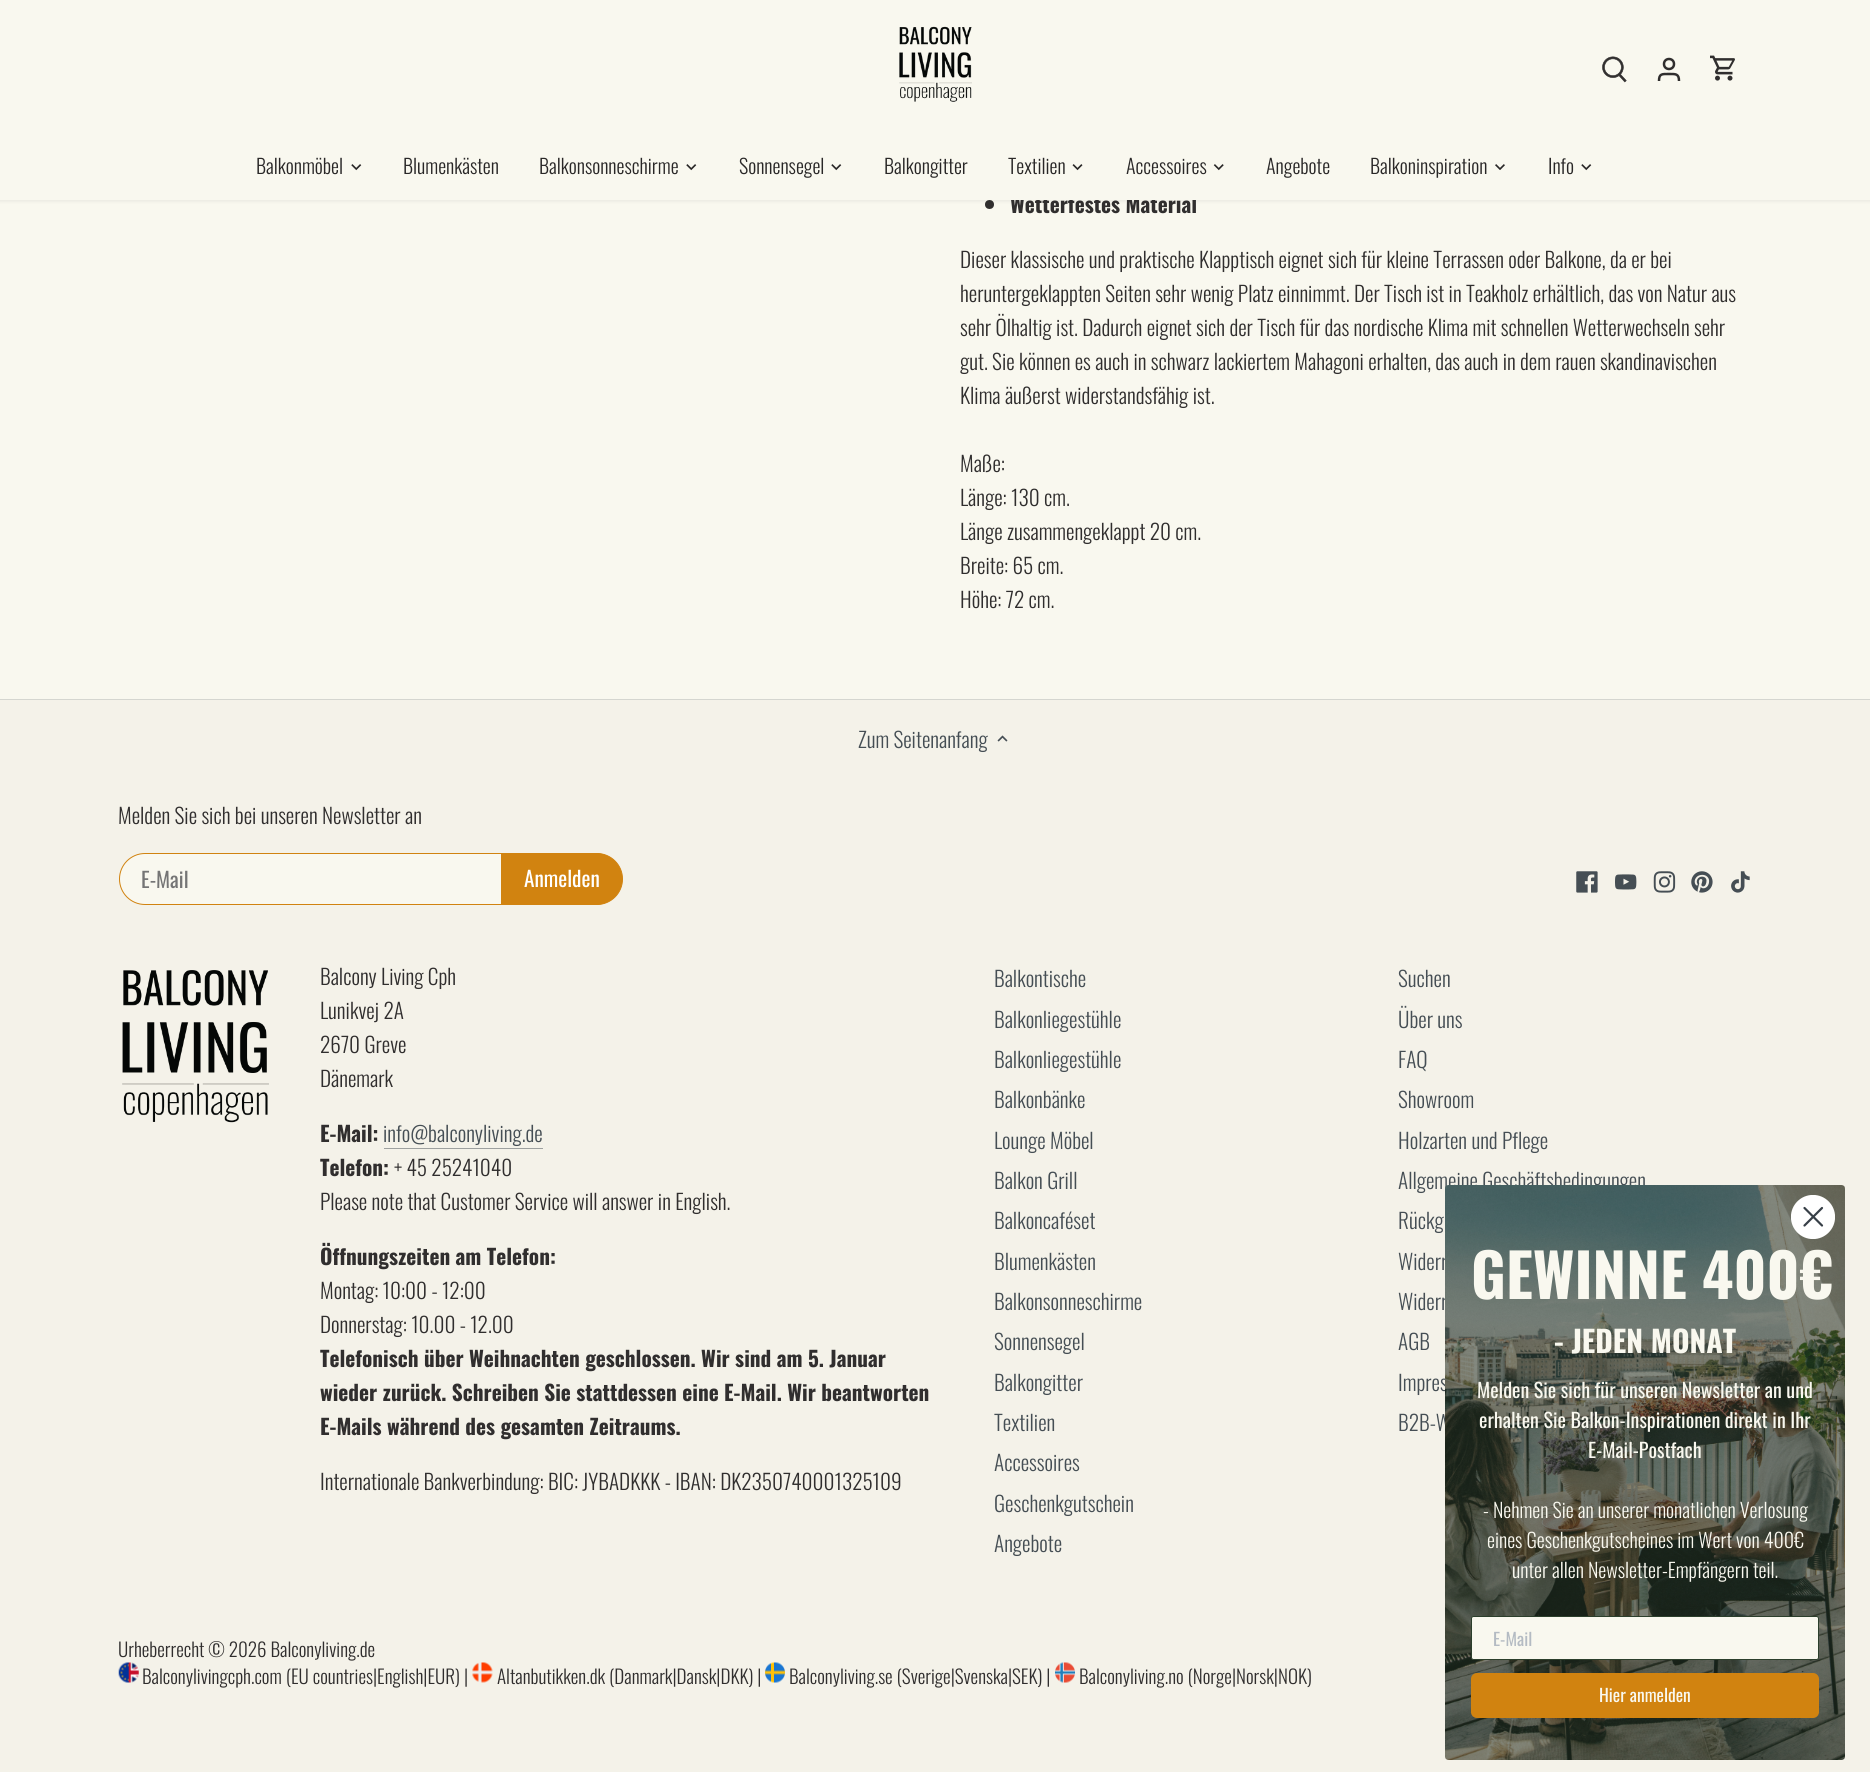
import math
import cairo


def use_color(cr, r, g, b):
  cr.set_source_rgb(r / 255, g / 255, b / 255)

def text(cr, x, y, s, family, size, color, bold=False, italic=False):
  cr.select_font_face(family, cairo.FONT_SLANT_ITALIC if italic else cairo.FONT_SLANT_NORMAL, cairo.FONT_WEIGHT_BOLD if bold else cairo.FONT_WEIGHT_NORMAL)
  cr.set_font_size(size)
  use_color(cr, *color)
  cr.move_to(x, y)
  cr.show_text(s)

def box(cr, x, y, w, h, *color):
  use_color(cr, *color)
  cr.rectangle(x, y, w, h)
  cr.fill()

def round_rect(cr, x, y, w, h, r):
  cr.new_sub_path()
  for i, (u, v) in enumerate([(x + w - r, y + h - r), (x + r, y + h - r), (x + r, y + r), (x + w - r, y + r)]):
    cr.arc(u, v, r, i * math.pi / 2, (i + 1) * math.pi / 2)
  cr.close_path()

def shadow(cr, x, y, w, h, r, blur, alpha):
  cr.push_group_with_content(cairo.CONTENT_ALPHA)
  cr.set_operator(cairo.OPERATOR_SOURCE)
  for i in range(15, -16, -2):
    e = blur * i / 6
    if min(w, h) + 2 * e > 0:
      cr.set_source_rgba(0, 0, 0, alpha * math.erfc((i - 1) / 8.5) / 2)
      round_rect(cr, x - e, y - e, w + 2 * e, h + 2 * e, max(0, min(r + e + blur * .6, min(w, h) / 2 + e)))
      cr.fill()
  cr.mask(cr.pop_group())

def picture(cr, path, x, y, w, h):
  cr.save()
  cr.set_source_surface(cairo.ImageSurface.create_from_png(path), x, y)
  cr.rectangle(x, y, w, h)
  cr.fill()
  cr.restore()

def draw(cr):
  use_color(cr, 244, 242, 233)
  cr.paint()
  box(cr, 0, 200, 1870, 499, 249, 248, 239)
  use_color(cr, 48, 46, 46)
  cr.arc(989.5, 204.5, 4.5, 0, 2 * math.pi)
  cr.fill()
  use_color(cr, 0, 0, 0)
  shadow(cr, -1, -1, 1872, 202, 0, 2, 0.08)
  box(cr, 0, 699, 1870, 1, 213, 214, 208)
  picture(cr, "img_08.png", 997, 735, 11, 7)
  use_color(cr, 249, 248, 239)
  round_rect(cr, 119.5, 853.5, 501, 51, 25.5)
  cr.fill_preserve()
  use_color(cr, 209, 131, 16)
  cr.set_line_width(1)
  cr.stroke()
  cr.new_path()
  cr.move_to(501.5, 853.5)
  cr.line_to(597, 853.5)
  cr.curve_to(611, 853.5, 622.5, 865, 622.5, 879)
  cr.curve_to(622.5, 893, 611, 904.5, 597, 904.5)
  cr.line_to(501.5, 904.5)
  cr.close_path()
  cr.fill_preserve()
  cr.stroke()
  picture(cr, "img_09.png", 1576, 871, 22, 22)
  picture(cr, "img_10.png", 1615, 874, 22, 16)
  picture(cr, "img_11.png", 1653, 871, 23, 22)
  picture(cr, "img_12.png", 1691, 871, 22, 22)
  picture(cr, "img_13.png", 1731, 871, 19, 22)
  picture(cr, "img_14.png", 122, 970, 147, 153)
  box(cr, 384, 1148, 159, 1, 157, 160, 159)
  picture(cr, "img_15.png", 118, 1662, 21, 21)
  picture(cr, "img_16.png", 472, 1662, 21, 21)
  picture(cr, "img_17.png", 765, 1662, 20, 21)
  picture(cr, "img_18.png", 1055, 1662, 20, 21)
  text(cr, 1010, 213, "Wetterfestes Material", "Oswald", 21.25, (48, 46, 46), bold=True)
  box(cr, 0, 0, 1870, 200, 249, 248, 239)
  picture(cr, "img_03.png", 1710, 55, 25, 26)
  picture(cr, "img_02.png", 1602, 56, 25, 27)
  cr.arc(1669, 64, 5, 0, 2 * math.pi)
  use_color(cr, 48, 46, 46)
  cr.set_line_width(2.5)
  cr.stroke()
  cr.new_path()
  cr.move_to(1679, 81)
  cr.curve_to(1679, 73.5, 1675.5, 74, 1669, 74)
  cr.curve_to(1662, 74, 1659, 73.5, 1659, 81)
  cr.stroke()
  picture(cr, "img_01.png", 899, 26, 73, 76)
  picture(cr, "img_04.png", 1581, 164, 11, 7)
  text(cr, 1548, 174, "Info", "Oswald Light", 20, (41, 39, 39))
  picture(cr, "img_07.png", 1495, 164, 10, 6)
  text(cr, 1370, 174, "Balkoninspiration", "Oswald Light", 20, (41, 39, 39))
  text(cr, 1266, 174, "Angebote", "Oswald Light", 20, (41, 39, 39))
  picture(cr, "img_06.png", 1213, 164, 11, 7)
  text(cr, 1126, 174, "Accessoires", "Oswald Light", 20, (41, 39, 39))
  picture(cr, "img_05.png", 1072, 164, 11, 7)
  text(cr, 1008, 174, "Textilien", "Oswald Light", 20, (41, 39, 39))
  text(cr, 884, 174, "Balkongitter", "Oswald Light", 20, (41, 39, 39))
  picture(cr, "img_04.png", 831, 164, 11, 7)
  text(cr, 739, 174, "Sonnensegel", "Oswald Light", 20, (41, 39, 39))
  picture(cr, "img_04.png", 686, 164, 11, 7)
  text(cr, 539, 174, "Balkonsonneschirme", "Oswald Light", 20, (41, 39, 39))
  text(cr, 403, 174, "Blumenkästen", "Oswald Light", 20, (41, 39, 39))
  picture(cr, "img_04.png", 351, 164, 11, 7)
  text(cr, 256, 174, "Balkonmöbel", "Oswald Light", 20, (41, 39, 39))
  text(cr, 960, 268, "Dieser klassische und praktische Klapptisch eignet sich für kleine Terrassen oder Balkone, da er bei", "Oswald Light", 21.25, (48, 46, 46))
  text(cr, 960, 302, "heruntergeklappten Seiten sehr wenig Platz einnimmt. Der Tisch ist in Teakholz erhältlich, das von Natur aus", "Oswald Light", 21.25, (48, 46, 46))
  text(cr, 960, 336, "sehr Ölhaltig ist. Dadurch eignet sich der Tisch für das nordische Klima mit schnellen Wetterwechseln sehr", "Oswald Light", 21.25, (48, 46, 46))
  text(cr, 960, 370, "gut. Sie können es auch in schwarz lackiertem Mahagoni erhalten, das auch in dem rauen skandinavischen", "Oswald Light", 21.25, (48, 46, 46))
  text(cr, 960, 404, "Klima äußerst widerstandsfähig ist.", "Oswald Light", 21.25, (48, 46, 46))
  text(cr, 960, 472, "Maße:", "Oswald Light", 21.25, (48, 46, 46))
  text(cr, 960, 506, "Länge: 130 cm.", "Oswald Light", 21.25, (48, 46, 46))
  text(cr, 960, 540, "Länge zusammengeklappt 20 cm.", "Oswald Light", 21.25, (48, 46, 46))
  text(cr, 960, 574, "Breite: 65 cm.", "Oswald Light", 21.25, (48, 46, 46))
  text(cr, 960, 608, "Höhe: 72 cm.", "Oswald Light", 21.25, (48, 46, 46))
  text(cr, 858, 748, "Zum Seitenanfang", "Oswald Light", 21.25, (69, 78, 84))
  text(cr, 118, 824, "Melden Sie sich bei unseren Newsletter an", "Oswald Light", 21.25, (48, 46, 46))
  text(cr, 141, 888, "E-Mail", "Oswald", 21.25, (117, 117, 117))
  text(cr, 524, 887, "Anmelden", "Oswald", 21.25, (255, 255, 255))
  text(cr, 320, 985, "Balcony Living Cph", "Oswald Light", 21.25, (48, 46, 46))
  text(cr, 320, 1019, "Lunikvej 2A", "Oswald Light", 21.25, (48, 46, 46))
  text(cr, 320, 1053, "2670 Greve", "Oswald Light", 21.25, (48, 46, 46))
  text(cr, 320, 1087, "Dänemark", "Oswald Light", 21.25, (48, 46, 46))
  text(cr, 320, 1142, "E-Mail:", "Oswald", 21.25, (48, 46, 46), bold=True)
  text(cr, 383, 1142, "info@balconyliving.de", "Oswald Light", 21.25, (69, 78, 84))
  text(cr, 320, 1176, "Telefon:", "Oswald", 21.25, (48, 46, 46), bold=True)
  text(cr, 394, 1176, "+ 45 25241040", "Oswald Light", 21.25, (48, 46, 46))
  text(cr, 320, 1210, "Please note that Customer Service will answer in English.", "Oswald Light", 21.25, (48, 46, 46))
  text(cr, 320, 1265, "Öffnungszeiten am Telefon:", "Oswald", 21.25, (48, 46, 46), bold=True)
  text(cr, 320, 1299, "Montag: 10:00 - 12:00", "Oswald Light", 21.25, (48, 46, 46))
  text(cr, 320, 1333, "Donnerstag: 10.00 - 12.00", "Oswald Light", 21.25, (48, 46, 46))
  text(cr, 320, 1367, "Telefonisch über Weihnachten geschlossen. Wir sind am 5. Januar", "Oswald", 21.25, (48, 46, 46), bold=True)
  text(cr, 320, 1401, "wieder zurück. Schreiben Sie stattdessen eine E-Mail. Wir beantworten", "Oswald", 21.25, (48, 46, 46), bold=True)
  text(cr, 320, 1435, "E-Mails während des gesamten Zeitraums.", "Oswald", 21.25, (48, 46, 46), bold=True)
  text(cr, 320, 1490, "Internationale Bankverbindung: BIC: JYBADKKK - IBAN: DK2350740001325109", "Oswald Light", 21.25, (48, 46, 46))
  text(cr, 994, 987, "Balkontische", "Oswald Light", 21.25, (69, 78, 84))
  text(cr, 994, 1028, "Balkonliegestühle", "Oswald Light", 21.25, (69, 78, 84))
  text(cr, 994, 1068, "Balkonliegestühle", "Oswald Light", 21.25, (69, 78, 84))
  text(cr, 994, 1108, "Balkonbänke", "Oswald Light", 21.25, (69, 78, 84))
  text(cr, 994, 1149, "Lounge Möbel", "Oswald Light", 21.25, (69, 78, 84))
  text(cr, 994, 1189, "Balkon Grill", "Oswald Light", 21.25, (69, 78, 84))
  text(cr, 994, 1229, "Balkoncaféset", "Oswald Light", 21.25, (69, 78, 84))
  text(cr, 994, 1270, "Blumenkästen", "Oswald Light", 21.25, (69, 78, 84))
  text(cr, 994, 1310, "Balkonsonneschirme", "Oswald Light", 21.25, (69, 78, 84))
  text(cr, 994, 1350, "Sonnensegel", "Oswald Light", 21.25, (69, 78, 84))
  text(cr, 994, 1391, "Balkongitter", "Oswald Light", 21.25, (69, 78, 84))
  text(cr, 994, 1431, "Textilien", "Oswald Light", 21.25, (69, 78, 84))
  text(cr, 994, 1471, "Accessoires", "Oswald Light", 21.25, (69, 78, 84))
  text(cr, 994, 1512, "Geschenkgutschein", "Oswald Light", 21.25, (69, 78, 84))
  text(cr, 994, 1552, "Angebote", "Oswald Light", 21.25, (69, 78, 84))
  text(cr, 1398, 987, "Suchen", "Oswald Light", 21.25, (69, 78, 84))
  text(cr, 1398, 1028, "Über uns", "Oswald Light", 21.25, (69, 78, 84))
  text(cr, 1398, 1068, "FAQ", "Oswald Light", 21.25, (69, 78, 84))
  text(cr, 1398, 1108, "Showroom", "Oswald Light", 21.25, (69, 78, 84))
  text(cr, 1398, 1149, "Holzarten und Pflege", "Oswald Light", 21.25, (69, 78, 84))
  text(cr, 1398, 1189, "Allgemeine Geschäftsbedingungen", "Oswald Light", 21.25, (69, 78, 84))
  text(cr, 1398, 1229, "Rückg", "Oswald Light", 21.25, (69, 78, 84))
  text(cr, 1398, 1270, "Widerr", "Oswald Light", 21.25, (69, 78, 84))
  text(cr, 1398, 1310, "Widerr", "Oswald Light", 21.25, (69, 78, 84))
  text(cr, 1398, 1350, "AGB", "Oswald Light", 21.25, (69, 78, 84))
  text(cr, 1398, 1391, "Impres", "Oswald Light", 21.25, (69, 78, 84))
  text(cr, 1398, 1431, "B2B-W", "Oswald Light", 21.25, (69, 78, 84))
  text(cr, 118, 1657, "Urheberrecht © 2026 Balconyliving.de", "Oswald Light", 19.1, (48, 46, 46))
  text(cr, 142, 1684, "Balconylivingcph.com (EU countries|English|EUR) |", "Oswald Light", 19.1, (48, 46, 46))
  text(cr, 497, 1684, "Altanbutikken.dk (Danmark|Dansk|DKK) |", "Oswald Light", 19.1, (48, 46, 46))
  text(cr, 789, 1684, "Balconyliving.se (Sverige|Svenska|SEK) |", "Oswald Light", 19.1, (48, 46, 46))
  text(cr, 1079, 1684, "Balconyliving.no (Norge|Norsk|NOK)", "Oswald Light", 19.1, (48, 46, 46))
  picture(cr, "img_19.png", 1445, 1185, 400, 575)
  use_color(cr, 255, 255, 255)
  cr.arc(1813, 1217, 21, 0, 2 * math.pi)
  cr.fill()
  cr.save()
  cr.rectangle(1791, 1195, 44, 44)
  cr.clip()
  cr.arc(1813, 1217, 21, 0, 2 * math.pi)
  cr.set_line_width(2.2)
  cr.stroke()
  cr.restore()
  cr.new_path()
  cr.move_to(1804.5, 1208)
  cr.line_to(1822, 1225.5)
  cr.move_to(1804.5, 1225.5)
  cr.line_to(1822, 1208)
  cr.close_path()
  use_color(cr, 55, 63, 71)
  cr.set_line_width(2.2)
  cr.set_line_cap(cairo.LINE_CAP_ROUND)
  cr.set_line_join(cairo.LINE_JOIN_ROUND)
  cr.stroke()
  text(cr, 1471, 1299, "GEWINNE 400€", "Oswald", 60, (249, 248, 239), bold=True)
  text(cr, 1554, 1353, "- JEDEN MONAT", "Oswald", 30, (249, 248, 239), bold=True)
  text(cr, 1477, 1398, "Melden Sie sich für unseren Newsletter an und", "Oswald", 20, (249, 248, 239))
  text(cr, 1479, 1428, "erhalten Sie Balkon-Inspirationen direkt in Ihr", "Oswald", 20, (249, 248, 239))
  text(cr, 1588, 1458, "E-Mail-Postfach", "Oswald", 20, (249, 248, 239))
  text(cr, 1483, 1518, "- Nehmen Sie an unserer monatlichen Verlosung", "Oswald Light", 20, (249, 248, 239))
  text(cr, 1487, 1548, "eines Geschenkgutscheines im Wert von 400€", "Oswald Light", 20, (249, 248, 239))
  text(cr, 1512, 1578, "unter allen Newsletter-Empfängern teil.", "Oswald Light", 20, (249, 248, 239))
  round_rect(cr, 1471.5, 1616.5, 347, 43, 2)
  cr.fill_preserve()
  use_color(cr, 44, 63, 44)
  cr.set_line_width(1)
  cr.set_line_cap(cairo.LINE_CAP_BUTT)
  cr.set_line_join(cairo.LINE_JOIN_MITER)
  cr.stroke()
  text(cr, 1493, 1646, "E-Mail", "Oswald", 17.5, (180, 187, 195))
  use_color(cr, 209, 131, 16)
  round_rect(cr, 1471, 1673, 348, 45, 6)
  cr.fill()
  text(cr, 1599, 1702, "Hier anmelden", "Oswald", 17.5, (249, 248, 239))


surface = cairo.ImageSurface(cairo.FORMAT_RGB24, 1870, 1772)
cr = cairo.Context(surface)
options = cairo.FontOptions()
options.set_hint_metrics(cairo.HINT_METRICS_OFF)
options.set_hint_style(cairo.HINT_STYLE_NONE)
cr.set_font_options(options)
cr.set_miter_limit(4)
draw(cr)
surface.write_to_png("out.png")
